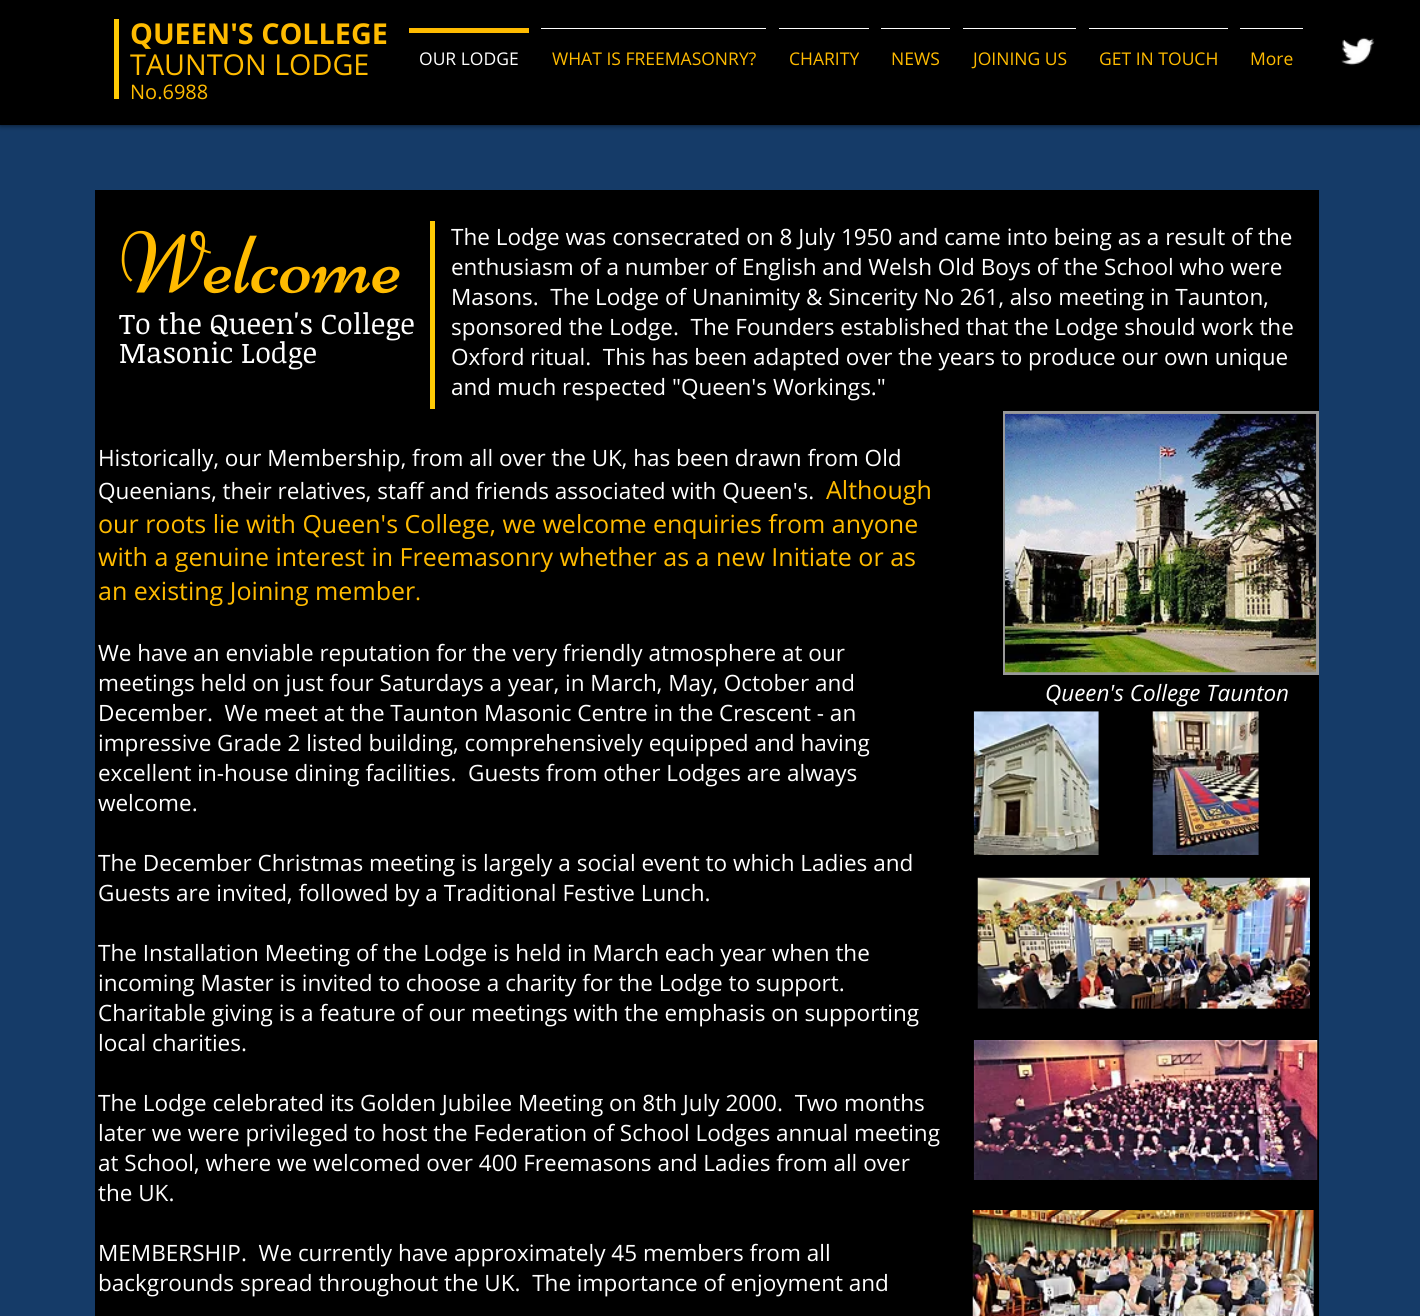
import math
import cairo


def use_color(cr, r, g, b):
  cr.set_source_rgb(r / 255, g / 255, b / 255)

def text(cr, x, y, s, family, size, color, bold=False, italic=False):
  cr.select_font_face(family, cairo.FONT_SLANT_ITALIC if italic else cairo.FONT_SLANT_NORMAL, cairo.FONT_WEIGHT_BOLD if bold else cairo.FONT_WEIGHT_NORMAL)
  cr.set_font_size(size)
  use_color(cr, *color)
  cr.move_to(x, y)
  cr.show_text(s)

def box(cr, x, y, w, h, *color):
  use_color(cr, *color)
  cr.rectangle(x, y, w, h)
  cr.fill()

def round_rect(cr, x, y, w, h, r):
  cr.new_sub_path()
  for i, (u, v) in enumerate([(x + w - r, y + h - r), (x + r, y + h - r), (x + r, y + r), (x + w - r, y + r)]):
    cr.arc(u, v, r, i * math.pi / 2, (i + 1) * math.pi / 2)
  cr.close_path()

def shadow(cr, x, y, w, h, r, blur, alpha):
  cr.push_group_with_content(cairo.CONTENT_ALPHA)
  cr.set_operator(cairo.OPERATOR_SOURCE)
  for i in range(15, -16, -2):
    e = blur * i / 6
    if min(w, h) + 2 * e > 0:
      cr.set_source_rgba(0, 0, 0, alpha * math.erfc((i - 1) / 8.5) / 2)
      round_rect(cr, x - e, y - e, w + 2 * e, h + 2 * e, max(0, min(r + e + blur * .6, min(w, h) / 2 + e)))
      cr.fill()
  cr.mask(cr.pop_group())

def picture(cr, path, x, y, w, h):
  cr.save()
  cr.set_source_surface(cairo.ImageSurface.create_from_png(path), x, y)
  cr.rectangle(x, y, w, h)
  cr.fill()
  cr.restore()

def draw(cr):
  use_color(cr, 21, 59, 104)
  cr.paint()
  use_color(cr, 0, 0, 0)
  shadow(cr, 0, 0, 1420, 125, 0, 3, 0.7)
  box(cr, 0, 0, 1420, 125, 0, 0, 0)
  box(cr, 114, 19, 5, 80, 255, 203, 5)
  box(cr, 409, 28, 120, 5, 255, 187, 0)
  box(cr, 541, 28, 225, 1, 255, 255, 255)
  box(cr, 779, 28, 90, 1, 255, 255, 255)
  box(cr, 881, 28, 69, 1, 255, 255, 255)
  box(cr, 963, 28, 113, 1, 255, 255, 255)
  box(cr, 1089, 28, 139, 1, 255, 255, 255)
  box(cr, 1240, 28, 63, 1, 255, 255, 255)
  picture(cr, "img_01.png", 1341, 37, 34, 29)
  box(cr, 95, 190, 1224, 1126, 0, 0, 0)
  picture(cr, "img_02.png", 121, 230, 279, 64)
  box(cr, 430, 221, 5, 188, 255, 203, 5)
  box(cr, 1003, 411, 316, 264, 153, 153, 153)
  picture(cr, "img_03.png", 1005, 413, 312, 260)
  picture(cr, "img_04.png", 973, 711, 126, 144)
  picture(cr, "img_05.png", 1152, 711, 107, 144)
  picture(cr, "img_06.png", 977, 877, 333, 132)
  picture(cr, "img_07.png", 973, 1040, 345, 140)
  picture(cr, "img_08.png", 972, 1210, 342, 106)
  text(cr, 130, 44, "QUEEN'S COLLEGE", "Open Sans", 28.75, (255, 187, 0), bold=True)
  text(cr, 130, 75, "TAUNTON LODGE", "Open Sans", 28.75, (255, 187, 0))
  text(cr, 130, 99, "No.6988", "Open Sans", 20, (255, 187, 0))
  text(cr, 419, 65, "OUR LODGE", "Open Sans", 17.5, (255, 255, 255))
  text(cr, 552, 65, "WHAT IS FREEMASONRY?", "Open Sans", 17.5, (255, 187, 0))
  text(cr, 789, 65, "CHARITY", "Open Sans", 17.5, (255, 187, 0))
  text(cr, 891, 65, "NEWS", "Open Sans", 17.5, (255, 187, 0))
  text(cr, 973, 65, "JOINING US", "Open Sans", 17.5, (255, 187, 0))
  text(cr, 1099, 65, "GET IN TOUCH", "Open Sans", 17.5, (255, 187, 0))
  text(cr, 1250, 65, "More", "Open Sans", 17.5, (255, 187, 0))
  text(cr, 119, 334, "To the Queen's College", "Noticia Text", 28.75, (255, 255, 255))
  text(cr, 119, 363, "Masonic Lodge", "Noticia Text", 28.75, (255, 255, 255))
  text(cr, 451, 245, "The Lodge was consecrated on 8 July 1950 and came into being as a result of the", "Open Sans", 22.5, (255, 255, 255))
  text(cr, 451, 275, "enthusiasm of a number of English and Welsh Old Boys of the School who were", "Open Sans", 22.5, (255, 255, 255))
  text(cr, 451, 305, "Masons.  The Lodge of Unanimity & Sincerity No 261, also meeting in Taunton,", "Open Sans", 22.5, (255, 255, 255))
  text(cr, 451, 335, "sponsored the Lodge.  The Founders established that the Lodge should work the", "Open Sans", 22.5, (255, 255, 255))
  text(cr, 451, 365, "Oxford ritual.  This has been adapted over the years to produce our own unique", "Open Sans", 22.5, (255, 255, 255))
  text(cr, 451, 395, "and much respected \"Queen's Workings.\"", "Open Sans", 22.5, (255, 255, 255))
  text(cr, 98, 466, "Historically, our Membership, from all over the UK, has been drawn from Old", "Open Sans", 22.5, (255, 255, 255))
  text(cr, 98, 499, "Queenians, their relatives, staff and friends associated with Queen's.", "Open Sans", 22.5, (255, 255, 255))
  text(cr, 826, 499, "Although", "Open Sans", 25, (255, 187, 0))
  text(cr, 98, 533, "our roots lie with Queen's College, we welcome enquiries from anyone", "Open Sans", 25, (255, 187, 0))
  text(cr, 98, 566, "with a genuine interest in Freemasonry whether as a new Initiate or as", "Open Sans", 25, (255, 187, 0))
  text(cr, 98, 600, "an existing Joining member", "Open Sans", 25, (255, 187, 0))
  text(cr, 415, 600, ".", "Open Sans", 22.5, (255, 187, 0))
  text(cr, 98, 661, "We have an enviable reputation for the very friendly atmosphere at our", "Open Sans", 22.5, (255, 255, 255))
  text(cr, 98, 691, "meetings held on just four Saturdays a year, in March, May, October and", "Open Sans", 22.5, (255, 255, 255))
  text(cr, 98, 721, "December.  We meet at the Taunton Masonic Centre in the Crescent - an", "Open Sans", 22.5, (255, 255, 255))
  text(cr, 98, 751, "impressive Grade 2 listed building, comprehensively equipped and having", "Open Sans", 22.5, (255, 255, 255))
  text(cr, 98, 781, "excellent in-house dining facilities.  Guests from other Lodges are always", "Open Sans", 22.5, (255, 255, 255))
  text(cr, 98, 811, "welcome.", "Open Sans", 22.5, (255, 255, 255))
  text(cr, 98, 871, "The December Christmas meeting is largely a social event to which Ladies and", "Open Sans", 22.5, (255, 255, 255))
  text(cr, 98, 901, "Guests are invited, followed by a Traditional Festive Lunch.", "Open Sans", 22.5, (255, 255, 255))
  text(cr, 98, 961, "The Installation Meeting of the Lodge is held in March each year when the", "Open Sans", 22.5, (255, 255, 255))
  text(cr, 98, 991, "incoming Master is invited to choose a charity for the Lodge to support.", "Open Sans", 22.5, (255, 255, 255))
  text(cr, 98, 1021, "Charitable giving is a feature of our meetings with the emphasis on supporting", "Open Sans", 22.5, (255, 255, 255))
  text(cr, 98, 1051, "local charities.", "Open Sans", 22.5, (255, 255, 255))
  text(cr, 98, 1111, "The Lodge celebrated its Golden Jubilee Meeting on 8th July 2000.  Two months", "Open Sans", 22.5, (255, 255, 255))
  text(cr, 98, 1141, "later we were privileged to host the Federation of School Lodges annual meeting", "Open Sans", 22.5, (255, 255, 255))
  text(cr, 98, 1171, "at School, where we welcomed over 400 Freemasons and Ladies from all over", "Open Sans", 22.5, (255, 255, 255))
  text(cr, 98, 1201, "the UK.", "Open Sans", 22.5, (255, 255, 255))
  text(cr, 98, 1261, "MEMBERSHIP.  We currently have approximately 45 members from all", "Open Sans", 22.5, (255, 255, 255))
  text(cr, 98, 1291, "backgrounds spread throughout the UK.  The importance of enjoyment and", "Open Sans", 22.5, (255, 255, 255))
  text(cr, 1045, 701, "Queen's College Taunton", "Open Sans", 22.5, (255, 255, 255), italic=True)


surface = cairo.ImageSurface(cairo.FORMAT_RGB24, 1420, 1316)
cr = cairo.Context(surface)
options = cairo.FontOptions()
options.set_hint_metrics(cairo.HINT_METRICS_OFF)
options.set_hint_style(cairo.HINT_STYLE_NONE)
cr.set_font_options(options)
cr.set_miter_limit(4)
draw(cr)
surface.write_to_png("out.png")
